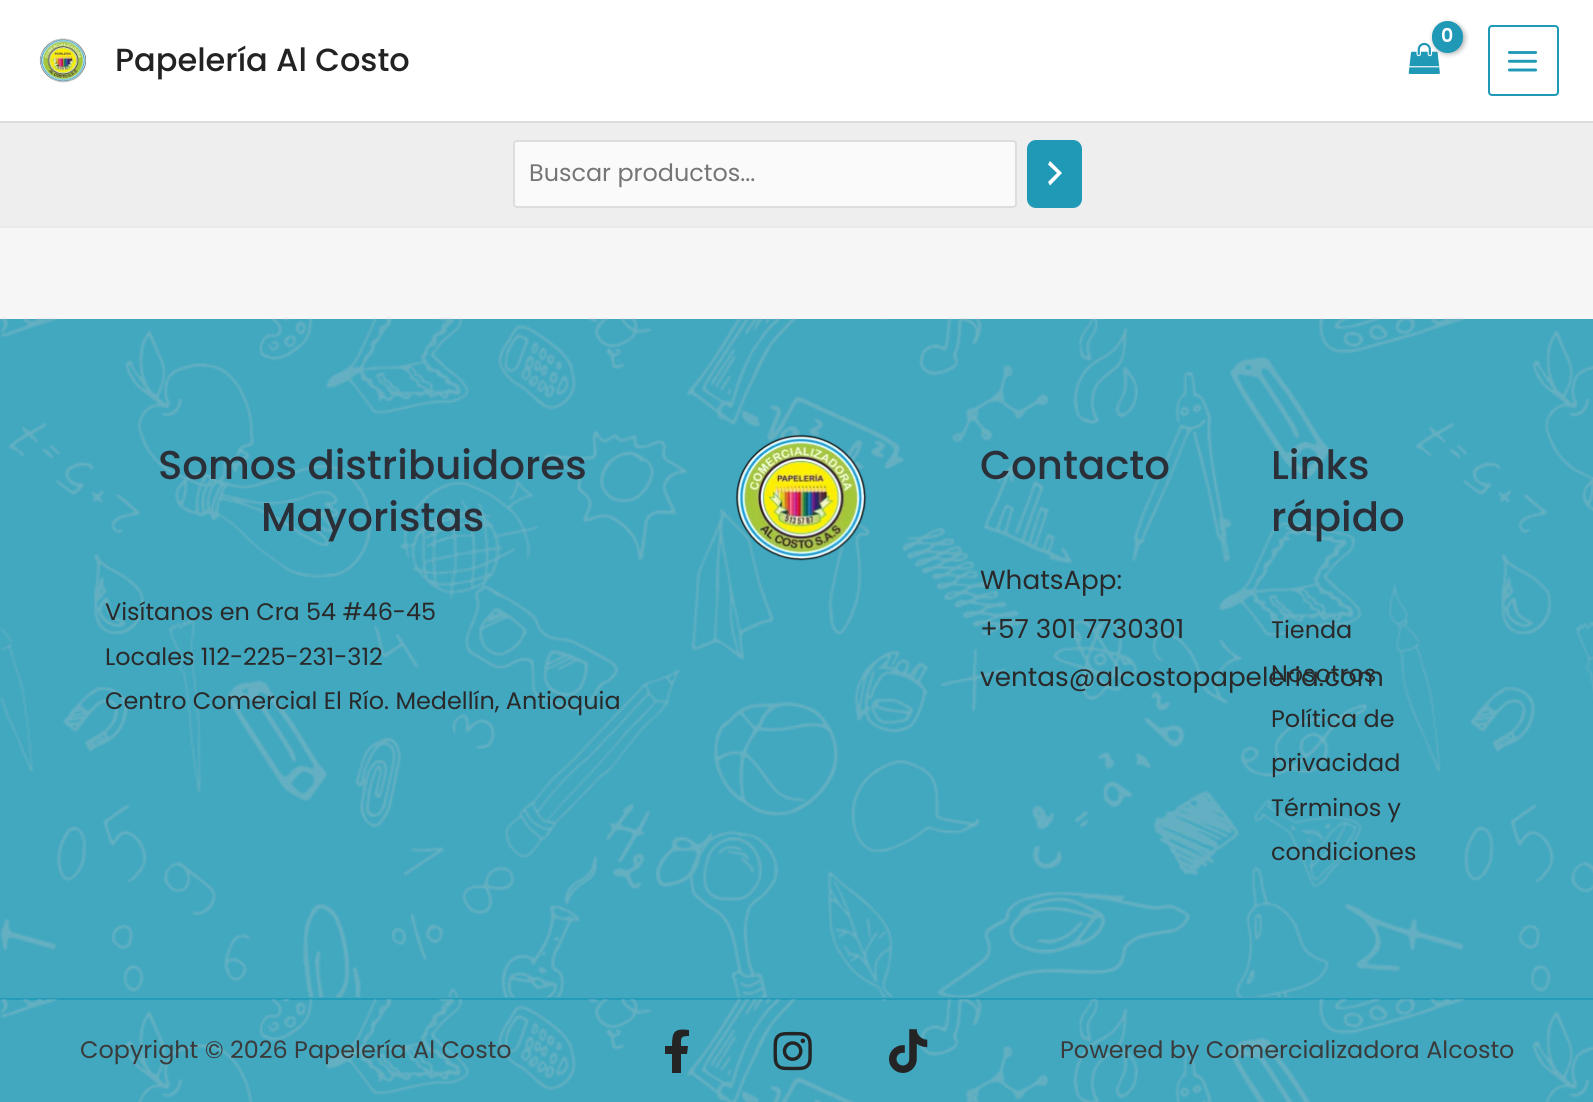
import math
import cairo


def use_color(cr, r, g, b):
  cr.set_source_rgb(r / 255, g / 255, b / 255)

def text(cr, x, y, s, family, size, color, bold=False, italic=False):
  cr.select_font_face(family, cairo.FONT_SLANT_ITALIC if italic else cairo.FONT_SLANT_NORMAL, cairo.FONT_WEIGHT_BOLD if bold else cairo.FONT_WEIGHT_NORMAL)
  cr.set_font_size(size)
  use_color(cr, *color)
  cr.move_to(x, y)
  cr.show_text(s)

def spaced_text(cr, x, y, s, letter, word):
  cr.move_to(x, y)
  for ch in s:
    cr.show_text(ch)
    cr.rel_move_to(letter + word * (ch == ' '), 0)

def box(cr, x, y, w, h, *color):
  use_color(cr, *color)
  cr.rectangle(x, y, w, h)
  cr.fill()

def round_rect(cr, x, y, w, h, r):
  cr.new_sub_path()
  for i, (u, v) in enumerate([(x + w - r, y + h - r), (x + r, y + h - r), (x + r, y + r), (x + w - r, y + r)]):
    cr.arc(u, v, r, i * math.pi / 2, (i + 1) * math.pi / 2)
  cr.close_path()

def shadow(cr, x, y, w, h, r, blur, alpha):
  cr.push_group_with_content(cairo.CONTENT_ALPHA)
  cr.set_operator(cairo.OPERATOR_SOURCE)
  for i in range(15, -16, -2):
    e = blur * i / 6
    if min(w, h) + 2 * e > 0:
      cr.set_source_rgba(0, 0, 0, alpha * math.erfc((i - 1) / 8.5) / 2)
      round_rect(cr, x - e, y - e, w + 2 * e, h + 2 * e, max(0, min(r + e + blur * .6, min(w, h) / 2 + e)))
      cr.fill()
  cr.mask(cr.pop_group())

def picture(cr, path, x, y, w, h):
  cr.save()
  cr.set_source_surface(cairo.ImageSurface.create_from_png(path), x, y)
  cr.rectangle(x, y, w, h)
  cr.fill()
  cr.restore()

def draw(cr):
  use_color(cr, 246, 246, 246)
  cr.paint()
  box(cr, 0, 0, 1593, 121, 255, 255, 255)
  box(cr, 0, 121, 1593, 2, 221, 221, 221)
  picture(cr, "img_01.png", 1408, 42, 32, 32)
  use_color(cr, 0, 0, 0)
  shadow(cr, 1433, 23, 32, 31, 15.5, 2.5, 0.3)
  use_color(cr, 31, 153, 182)
  round_rect(cr, 1432, 21, 31, 32, 15.5)
  cr.fill()
  round_rect(cr, 1489, 26, 69, 69, 3)
  cr.stroke()
  picture(cr, "img_02.png", 1507, 51, 31, 21)
  picture(cr, "img_03.png", 39, 38, 48, 45)
  box(cr, 0, 123, 1593, 103, 238, 238, 238)
  box(cr, 0, 226, 1593, 2, 234, 234, 234)
  use_color(cr, 250, 250, 250)
  round_rect(cr, 514, 141, 502, 66, 3)
  cr.fill_preserve()
  use_color(cr, 221, 221, 221)
  cr.stroke()
  use_color(cr, 31, 153, 182)
  round_rect(cr, 1027, 140, 55, 68, 9)
  cr.fill()
  use_color(cr, 255, 255, 255)
  cr.new_path()
  cr.move_to(1048, 182)
  cr.line_to(1057, 173)
  cr.line_to(1048, 164.5)
  cr.line_to(1050, 161)
  cr.line_to(1062, 173)
  cr.line_to(1050, 185.5)
  cr.close_path()
  cr.fill()
  box(cr, 0, 319, 1593, 679, 65, 168, 192)
  picture(cr, "img_04.png", 0, 318, 1593, 680)
  picture(cr, "img_05.png", 735, 434, 132, 127)
  box(cr, 0, 1000, 1593, 102, 65, 168, 192)
  box(cr, 0, 998, 1593, 2, 36, 155, 184)
  picture(cr, "img_06.png", 0, 999, 1593, 103)
  use_color(cr, 36, 36, 36)
  cr.new_path()
  cr.move_to(687, 1054)
  cr.line_to(681, 1054)
  cr.line_to(681, 1073)
  cr.line_to(672, 1073)
  cr.line_to(672, 1054)
  cr.line_to(665, 1054)
  cr.line_to(665, 1046)
  cr.line_to(672, 1046)
  cr.curve_to(672, 1032, 674, 1028, 689, 1030)
  cr.line_to(689, 1036)
  cr.curve_to(680, 1036, 681, 1038, 681, 1046)
  cr.line_to(688, 1046)
  cr.close_path()
  cr.fill()
  picture(cr, "img_07.png", 773, 1031, 39, 40)
  picture(cr, "img_08.png", 889, 1029, 39, 44)
  cr.select_font_face("Poppins SemiBold")
  cr.set_font_size(19)
  use_color(cr, 255, 255, 255)
  spaced_text(cr, 1441, 42, "0", -1, 0)
  text(cr, 115, 71, "Papelería Al Costo", "Poppins Medium", 32, (34, 34, 34))
  text(cr, 529, 181, "Buscar productos...", "Poppins", 23.9, (117, 117, 117))
  text(cr, 158, 479, "Somos distribuidores", "Poppins Medium", 40.25, (43, 47, 56))
  text(cr, 261, 531, "Mayoristas", "Poppins Medium", 40.25, (43, 47, 56))
  text(cr, 105, 620, "Visítanos en Cra 54 #46-45", "Poppins", 23.9, (41, 41, 41))
  text(cr, 105, 665, "Locales 112-225-231-312", "Poppins", 23.9, (41, 41, 41))
  text(cr, 105, 709, "Centro Comercial El Río. Medellín, Antioquia", "Poppins", 23.9, (41, 41, 41))
  text(cr, 1271, 479, "Links", "Poppins Medium", 40.25, (43, 47, 56))
  text(cr, 1271, 531, "rápido", "Poppins Medium", 40.25, (43, 47, 56))
  text(cr, 1271, 638, "Tienda", "Poppins", 23.9, (41, 41, 41))
  text(cr, 1271, 727, "Política de", "Poppins", 23.9, (41, 41, 41))
  text(cr, 1271, 771, "privacidad", "Poppins", 23.9, (41, 41, 41))
  text(cr, 1271, 816, "Términos y", "Poppins", 23.9, (41, 41, 41))
  text(cr, 1271, 860, "condiciones", "Poppins", 23.9, (41, 41, 41))
  text(cr, 980, 479, "Contacto", "Poppins Medium", 40.25, (43, 47, 56))
  text(cr, 980, 589, "WhatsApp:", "Poppins", 26.25, (41, 41, 41))
  text(cr, 980, 638, "+57 301 7730301", "Poppins", 26.25, (41, 41, 41))
  text(cr, 980, 686, "ventas@alcostopapeleria.com", "Poppins", 26.25, (41, 41, 41))
  text(cr, 1271, 682, "Nosotros", "Poppins", 23.9, (41, 41, 41))
  text(cr, 80, 1058, "Copyright © 2026 Papelería Al Costo", "Poppins", 23.9, (58, 58, 58))
  text(cr, 1060, 1058, "Powered by Comercializadora Alcosto", "Poppins", 23.9, (58, 58, 58))


surface = cairo.ImageSurface(cairo.FORMAT_RGB24, 1593, 1102)
cr = cairo.Context(surface)
options = cairo.FontOptions()
options.set_hint_metrics(cairo.HINT_METRICS_OFF)
options.set_hint_style(cairo.HINT_STYLE_NONE)
cr.set_font_options(options)
cr.set_miter_limit(4)
draw(cr)
surface.write_to_png("out.png")
